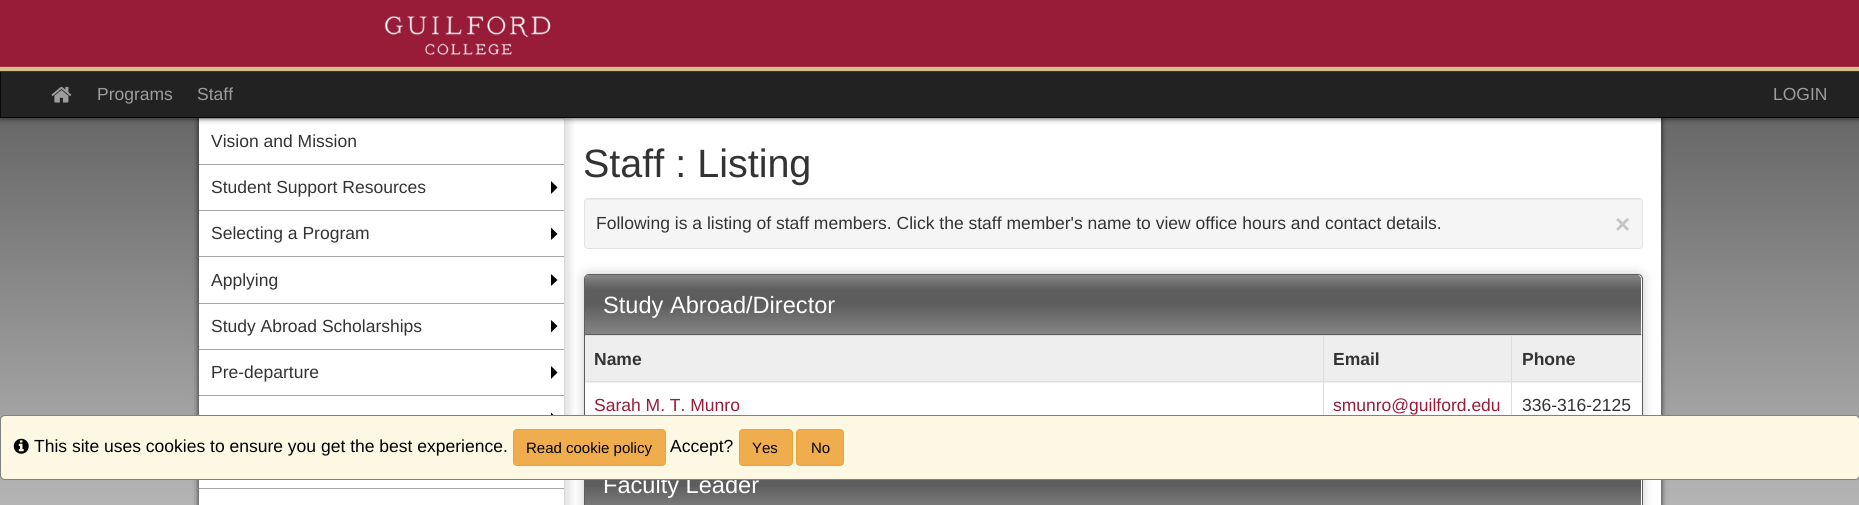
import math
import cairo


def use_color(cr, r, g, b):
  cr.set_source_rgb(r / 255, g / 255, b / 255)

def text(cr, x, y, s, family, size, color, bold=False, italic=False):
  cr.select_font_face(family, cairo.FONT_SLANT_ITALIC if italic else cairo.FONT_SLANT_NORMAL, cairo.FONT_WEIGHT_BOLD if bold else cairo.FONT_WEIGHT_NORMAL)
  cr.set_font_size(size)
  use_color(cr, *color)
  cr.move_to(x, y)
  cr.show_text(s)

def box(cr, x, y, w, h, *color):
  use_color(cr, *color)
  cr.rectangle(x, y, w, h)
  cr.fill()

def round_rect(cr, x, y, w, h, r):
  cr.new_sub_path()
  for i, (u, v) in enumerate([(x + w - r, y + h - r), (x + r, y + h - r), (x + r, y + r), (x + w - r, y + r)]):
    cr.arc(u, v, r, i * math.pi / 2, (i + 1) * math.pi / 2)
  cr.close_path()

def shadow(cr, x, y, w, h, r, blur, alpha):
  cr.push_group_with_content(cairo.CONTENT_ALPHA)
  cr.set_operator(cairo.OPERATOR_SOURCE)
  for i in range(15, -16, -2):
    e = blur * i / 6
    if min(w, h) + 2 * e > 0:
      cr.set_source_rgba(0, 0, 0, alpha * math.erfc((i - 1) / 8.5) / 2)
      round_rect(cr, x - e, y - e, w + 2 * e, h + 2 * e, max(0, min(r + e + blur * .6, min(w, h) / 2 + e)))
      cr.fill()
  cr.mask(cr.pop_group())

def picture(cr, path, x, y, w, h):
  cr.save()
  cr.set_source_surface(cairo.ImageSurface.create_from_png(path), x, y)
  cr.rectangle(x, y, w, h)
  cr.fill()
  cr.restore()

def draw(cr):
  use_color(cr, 255, 255, 255)
  cr.paint()
  gradient = cairo.LinearGradient(930, 0, 930, 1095)
  gradient.add_color_stop_rgba(0.06, 0.365, 0.365, 0.365, 1)
  gradient.add_color_stop_rgba(0.8, 1, 1, 1, 1)
  cr.set_source(gradient)
  cr.rectangle(0, 118, 1859, 387)
  cr.fill()
  use_color(cr, 0, 0, 0)
  shadow(cr, 199, 118, 1462, 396, 0, 3, 0.8)
  box(cr, 199, 118, 1462, 387, 255, 255, 255)
  cr.save()
  cr.rectangle(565, 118, 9, 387)
  cr.clip()
  use_color(cr, 0, 0, 0)
  shadow(cr, 205, 118, 366, 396, 0, 3, 0.1)
  cr.restore()
  use_color(cr, 217, 217, 217)
  cr.new_path()
  cr.move_to(199, 118)
  cr.line_to(565, 118)
  cr.line_to(564, 119)
  cr.line_to(199, 119)
  cr.close_path()
  cr.fill()
  cr.set_source_rgba(0, 0, 0, 0.15)
  cr.new_path()
  cr.move_to(565, 118)
  cr.line_to(565, 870)
  cr.line_to(564, 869)
  cr.line_to(564, 119)
  cr.close_path()
  cr.fill()
  use_color(cr, 0, 0, 0)
  shadow(cr, 0, 71, 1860, 47, 0, 3, 0.8)
  use_color(cr, 34, 34, 34)
  cr.rectangle(0.5, 71.5, 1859, 46)
  cr.fill_preserve()
  use_color(cr, 8, 8, 8)
  cr.set_line_width(1)
  cr.stroke()
  picture(cr, "img_01.png", 0, 0, 1859, 72)
  picture(cr, "img_02.png", 51, 86, 21, 17)
  box(cr, 199, 164, 365, 1, 166, 166, 166)
  box(cr, 199, 210, 365, 1, 166, 166, 166)
  use_color(cr, 0, 0, 0)
  cr.new_path()
  cr.move_to(551, 194)
  cr.line_to(551, 181)
  cr.line_to(557.5, 187.5)
  cr.close_path()
  cr.fill()
  box(cr, 199, 256, 365, 1, 166, 166, 166)
  use_color(cr, 0, 0, 0)
  cr.new_path()
  cr.move_to(551, 240)
  cr.line_to(551, 227.5)
  cr.line_to(557.5, 234)
  cr.close_path()
  cr.fill()
  box(cr, 199, 303, 365, 1, 166, 166, 166)
  use_color(cr, 0, 0, 0)
  cr.new_path()
  cr.move_to(551, 286)
  cr.line_to(551, 274)
  cr.line_to(557.5, 280)
  cr.close_path()
  cr.fill()
  box(cr, 199, 349, 365, 1, 166, 166, 166)
  use_color(cr, 0, 0, 0)
  cr.new_path()
  cr.move_to(551, 332.5)
  cr.line_to(551, 320)
  cr.line_to(557.5, 326)
  cr.close_path()
  cr.fill()
  box(cr, 199, 395, 365, 1, 166, 166, 166)
  use_color(cr, 0, 0, 0)
  cr.new_path()
  cr.move_to(551, 379)
  cr.line_to(551, 366)
  cr.line_to(557.5, 372.5)
  cr.close_path()
  cr.fill()
  cr.new_path()
  cr.move_to(551, 425)
  cr.line_to(551, 412.5)
  cr.line_to(557.5, 419)
  cr.close_path()
  cr.fill()
  box(cr, 199, 488, 365, 1, 166, 166, 166)
  use_color(cr, 245, 245, 245)
  round_rect(cr, 584, 198, 1059, 51, 4)
  cr.fill()
  use_color(cr, 233, 233, 233)
  cr.new_path()
  cr.move_to(588, 200)
  cr.line_to(1639, 200)
  cr.curve_to(1640, 200, 1641, 201, 1641, 202)
  cr.curve_to(1641, 200, 1640, 199, 1638, 199)
  cr.line_to(588, 199)
  cr.curve_to(586, 199, 585, 200, 585, 201)
  cr.line_to(585, 202)
  cr.curve_to(585, 201, 586, 200, 588, 200)
  cr.close_path()
  cr.fill()
  round_rect(cr, 584.5, 198.5, 1058, 50, 3.5)
  use_color(cr, 227, 227, 227)
  cr.stroke()
  use_color(cr, 0, 0, 0)
  shadow(cr, 584, 274, 1059, 155, 5, 6, 0.2)
  use_color(cr, 255, 255, 255)
  round_rect(cr, 584.5, 274.5, 1058, 154, 4.5)
  cr.fill_preserve()
  use_color(cr, 93, 93, 93)
  cr.stroke()
  cr.new_path()
  cr.move_to(589, 275)
  cr.line_to(1637, 275)
  cr.curve_to(1639, 275, 1641, 277, 1641, 279)
  cr.line_to(1641, 335)
  cr.line_to(585, 335)
  cr.line_to(585, 279)
  cr.curve_to(585, 277, 587, 275, 589, 275)
  cr.close_path()
  cr.fill()
  gradient = cairo.LinearGradient(1113, 275, 1113, 334)
  gradient.add_color_stop_rgba(0, 1, 1, 1, 0.25)
  gradient.add_color_stop_rgba(0.25, 1, 1, 1, 0)
  gradient.add_color_stop_rgba(0.5, 1, 1, 1, 0)
  gradient.add_color_stop_rgba(1, 1, 1, 1, 0.25)
  cr.set_source(gradient)
  cr.new_path()
  cr.move_to(589, 275)
  cr.line_to(1637, 275)
  cr.curve_to(1639, 275, 1641, 277, 1641, 279)
  cr.line_to(1641, 334)
  cr.line_to(585, 334)
  cr.line_to(585, 279)
  cr.curve_to(585, 277, 587, 275, 589, 275)
  cr.close_path()
  cr.fill()
  box(cr, 585, 336, 1056, 47, 238, 238, 238)
  box(cr, 1511, 335, 130, 1, 221, 221, 221)
  box(cr, 1511, 381, 130, 1, 221, 221, 221)
  box(cr, 1511, 381, 1, 34, 221, 221, 221)
  box(cr, 1323, 381, 190, 1, 221, 221, 221)
  box(cr, 1511, 335, 1, 48, 221, 221, 221)
  box(cr, 1323, 335, 190, 1, 221, 221, 221)
  box(cr, 1323, 381, 1, 34, 221, 221, 221)
  box(cr, 585, 381, 739, 1, 221, 221, 221)
  box(cr, 1323, 335, 1, 48, 221, 221, 221)
  box(cr, 585, 335, 739, 1, 221, 221, 221)
  use_color(cr, 0, 0, 0)
  shadow(cr, 584, 454, 1059, 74, 5, 6, 0.2)
  box(cr, 1641, 480, 1, 25, 255, 255, 255)
  cr.rectangle(584.5, 454.5, 1058, 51)
  use_color(cr, 93, 93, 93)
  cr.stroke()
  box(cr, 585, 480, 1056, 25, 93, 93, 93)
  gradient = cairo.LinearGradient(1113, 455, 1113, 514)
  gradient.add_color_stop_rgba(0, 1, 1, 1, 0.25)
  gradient.add_color_stop_rgba(0.25, 1, 1, 1, 0)
  gradient.add_color_stop_rgba(0.5, 1, 1, 1, 0)
  gradient.add_color_stop_rgba(1, 1, 1, 1, 0.25)
  cr.set_source(gradient)
  cr.rectangle(585, 487, 1056, 18)
  cr.fill()
  text(cr, 97, 100, "Programs", "Liberation Sans", 17.5, (157, 157, 157))
  text(cr, 197, 100, "Staff", "Liberation Sans", 17.5, (157, 157, 157))
  text(cr, 1773, 100, "LOGIN", "Liberation Sans", 17.5, (157, 157, 157))
  text(cr, 211, 147, "Vision and Mission", "Liberation Sans", 17.5, (51, 51, 51))
  text(cr, 211, 193, "Student Support Resources", "Liberation Sans", 17.5, (51, 51, 51))
  text(cr, 211, 239, "Selecting a Program", "Liberation Sans", 17.5, (51, 51, 51))
  text(cr, 211, 286, "Applying", "Liberation Sans", 17.5, (51, 51, 51))
  text(cr, 211, 332, "Study Abroad Scholarships", "Liberation Sans", 17.5, (51, 51, 51))
  text(cr, 211, 378, "Pre-departure", "Liberation Sans", 17.5, (51, 51, 51))
  text(cr, 583, 177, "Staff : Listing", "Liberation Sans", 39.5, (51, 51, 51))
  text(cr, 596, 229, "Following is a listing of staff members. Click the staff member's name to view office hours and contact details.", "Liberation Sans", 17.5, (51, 51, 51))
  text(cr, 1615, 233, "×", "Liberation Sans", 26, (196, 196, 196), bold=True)
  text(cr, 603, 313, "Study Abroad/Director", "Liberation Sans", 23.6, (255, 255, 255))
  text(cr, 594, 365, "Name", "Liberation Sans", 17.5, (51, 51, 51), bold=True)
  text(cr, 1333, 365, "Email", "Liberation Sans", 17.5, (51, 51, 51), bold=True)
  text(cr, 1522, 365, "Phone", "Liberation Sans", 17.5, (51, 51, 51), bold=True)
  text(cr, 594, 411, "Sarah M. T. Munro", "Liberation Sans", 17.5, (152, 28, 56))
  text(cr, 1333, 411, "smunro@guilford.edu", "Liberation Sans", 17.5, (152, 28, 56))
  text(cr, 1522, 411, "336-316-2125", "Liberation Sans", 17.5, (51, 51, 51))
  text(cr, 603, 493, "Faculty Leader", "Liberation Sans", 23.6, (255, 255, 255))
  use_color(cr, 252, 248, 227)
  round_rect(cr, 0.5, 415.5, 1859, 64, 4.5)
  cr.fill_preserve()
  use_color(cr, 128, 128, 128)
  cr.stroke()
  picture(cr, "img_03.png", 13, 438, 16, 16)
  text(cr, 34, 452, "This site uses cookies to ensure you get the best experience.", "Liberation Sans", 17.5, (0, 0, 0))
  use_color(cr, 240, 173, 78)
  round_rect(cr, 513.5, 429.5, 152, 36, 3.5)
  cr.fill_preserve()
  use_color(cr, 238, 162, 54)
  cr.stroke()
  text(cr, 526, 453, "Read cookie policy", "Liberation Sans", 15, (0, 0, 0))
  text(cr, 670, 452, "Accept?", "Liberation Sans", 17.5, (0, 0, 0))
  use_color(cr, 240, 173, 78)
  round_rect(cr, 739.5, 429.5, 53, 36, 3.5)
  cr.fill_preserve()
  use_color(cr, 238, 162, 54)
  cr.stroke()
  text(cr, 752, 453, "Yes", "Liberation Sans", 15, (0, 0, 0))
  use_color(cr, 240, 173, 78)
  round_rect(cr, 796.5, 429.5, 47, 36, 3.5)
  cr.fill_preserve()
  use_color(cr, 238, 162, 54)
  cr.stroke()
  text(cr, 811, 453, "No", "Liberation Sans", 15, (0, 0, 0))


surface = cairo.ImageSurface(cairo.FORMAT_RGB24, 1859, 505)
cr = cairo.Context(surface)
options = cairo.FontOptions()
options.set_hint_metrics(cairo.HINT_METRICS_OFF)
options.set_hint_style(cairo.HINT_STYLE_NONE)
cr.set_font_options(options)
cr.set_miter_limit(4)
draw(cr)
surface.write_to_png("out.png")
